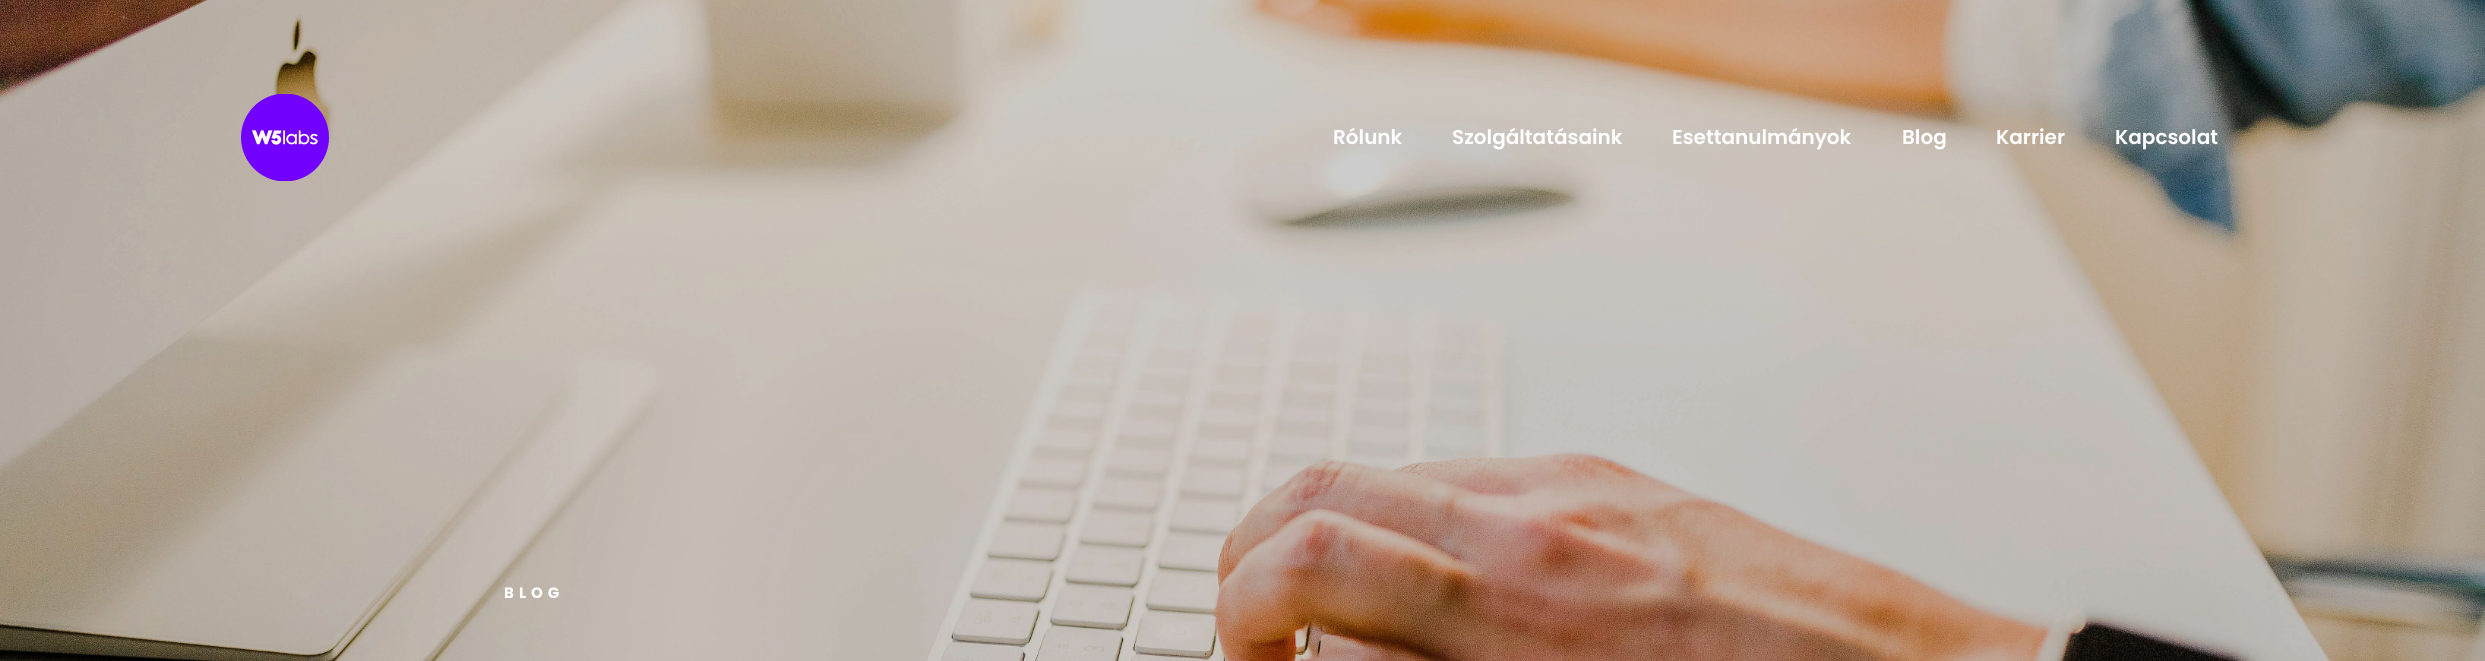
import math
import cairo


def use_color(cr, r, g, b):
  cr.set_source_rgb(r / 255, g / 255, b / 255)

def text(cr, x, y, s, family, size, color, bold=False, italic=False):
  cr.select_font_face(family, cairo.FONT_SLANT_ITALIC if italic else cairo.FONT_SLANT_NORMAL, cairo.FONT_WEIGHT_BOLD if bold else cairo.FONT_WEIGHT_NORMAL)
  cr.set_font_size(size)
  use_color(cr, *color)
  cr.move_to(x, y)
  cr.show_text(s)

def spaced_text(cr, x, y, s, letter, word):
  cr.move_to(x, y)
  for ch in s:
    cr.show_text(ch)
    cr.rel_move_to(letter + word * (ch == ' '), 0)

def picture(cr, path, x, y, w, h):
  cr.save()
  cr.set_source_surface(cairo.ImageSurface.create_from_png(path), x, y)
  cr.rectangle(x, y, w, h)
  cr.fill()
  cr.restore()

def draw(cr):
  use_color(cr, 255, 255, 255)
  cr.paint()
  picture(cr, "img_01.png", 0, 0, 2485, 661)
  picture(cr, "img_02.png", 241, 94, 88, 87)
  text(cr, 1333, 144, "Rólunk", "Poppins SemiBold", 20, (255, 255, 255))
  text(cr, 1452, 144, "Szolgáltatásaink", "Poppins SemiBold", 20, (255, 255, 255))
  text(cr, 1672, 144, "Esettanulmányok", "Poppins SemiBold", 20, (255, 255, 255))
  text(cr, 1902, 144, "Blog", "Poppins SemiBold", 20, (255, 255, 255))
  text(cr, 1996, 144, "Karrier", "Poppins SemiBold", 20, (255, 255, 255))
  text(cr, 2115, 144, "Kapcsolat", "Poppins SemiBold", 20, (255, 255, 255))
  cr.select_font_face("Poppins", cairo.FONT_SLANT_NORMAL, cairo.FONT_WEIGHT_BOLD)
  cr.set_font_size(15)
  spaced_text(cr, 504, 598, "BLOG", 5, 0)


surface = cairo.ImageSurface(cairo.FORMAT_RGB24, 2485, 661)
cr = cairo.Context(surface)
options = cairo.FontOptions()
options.set_hint_metrics(cairo.HINT_METRICS_OFF)
options.set_hint_style(cairo.HINT_STYLE_NONE)
cr.set_font_options(options)
cr.set_miter_limit(4)
draw(cr)
surface.write_to_png("out.png")
